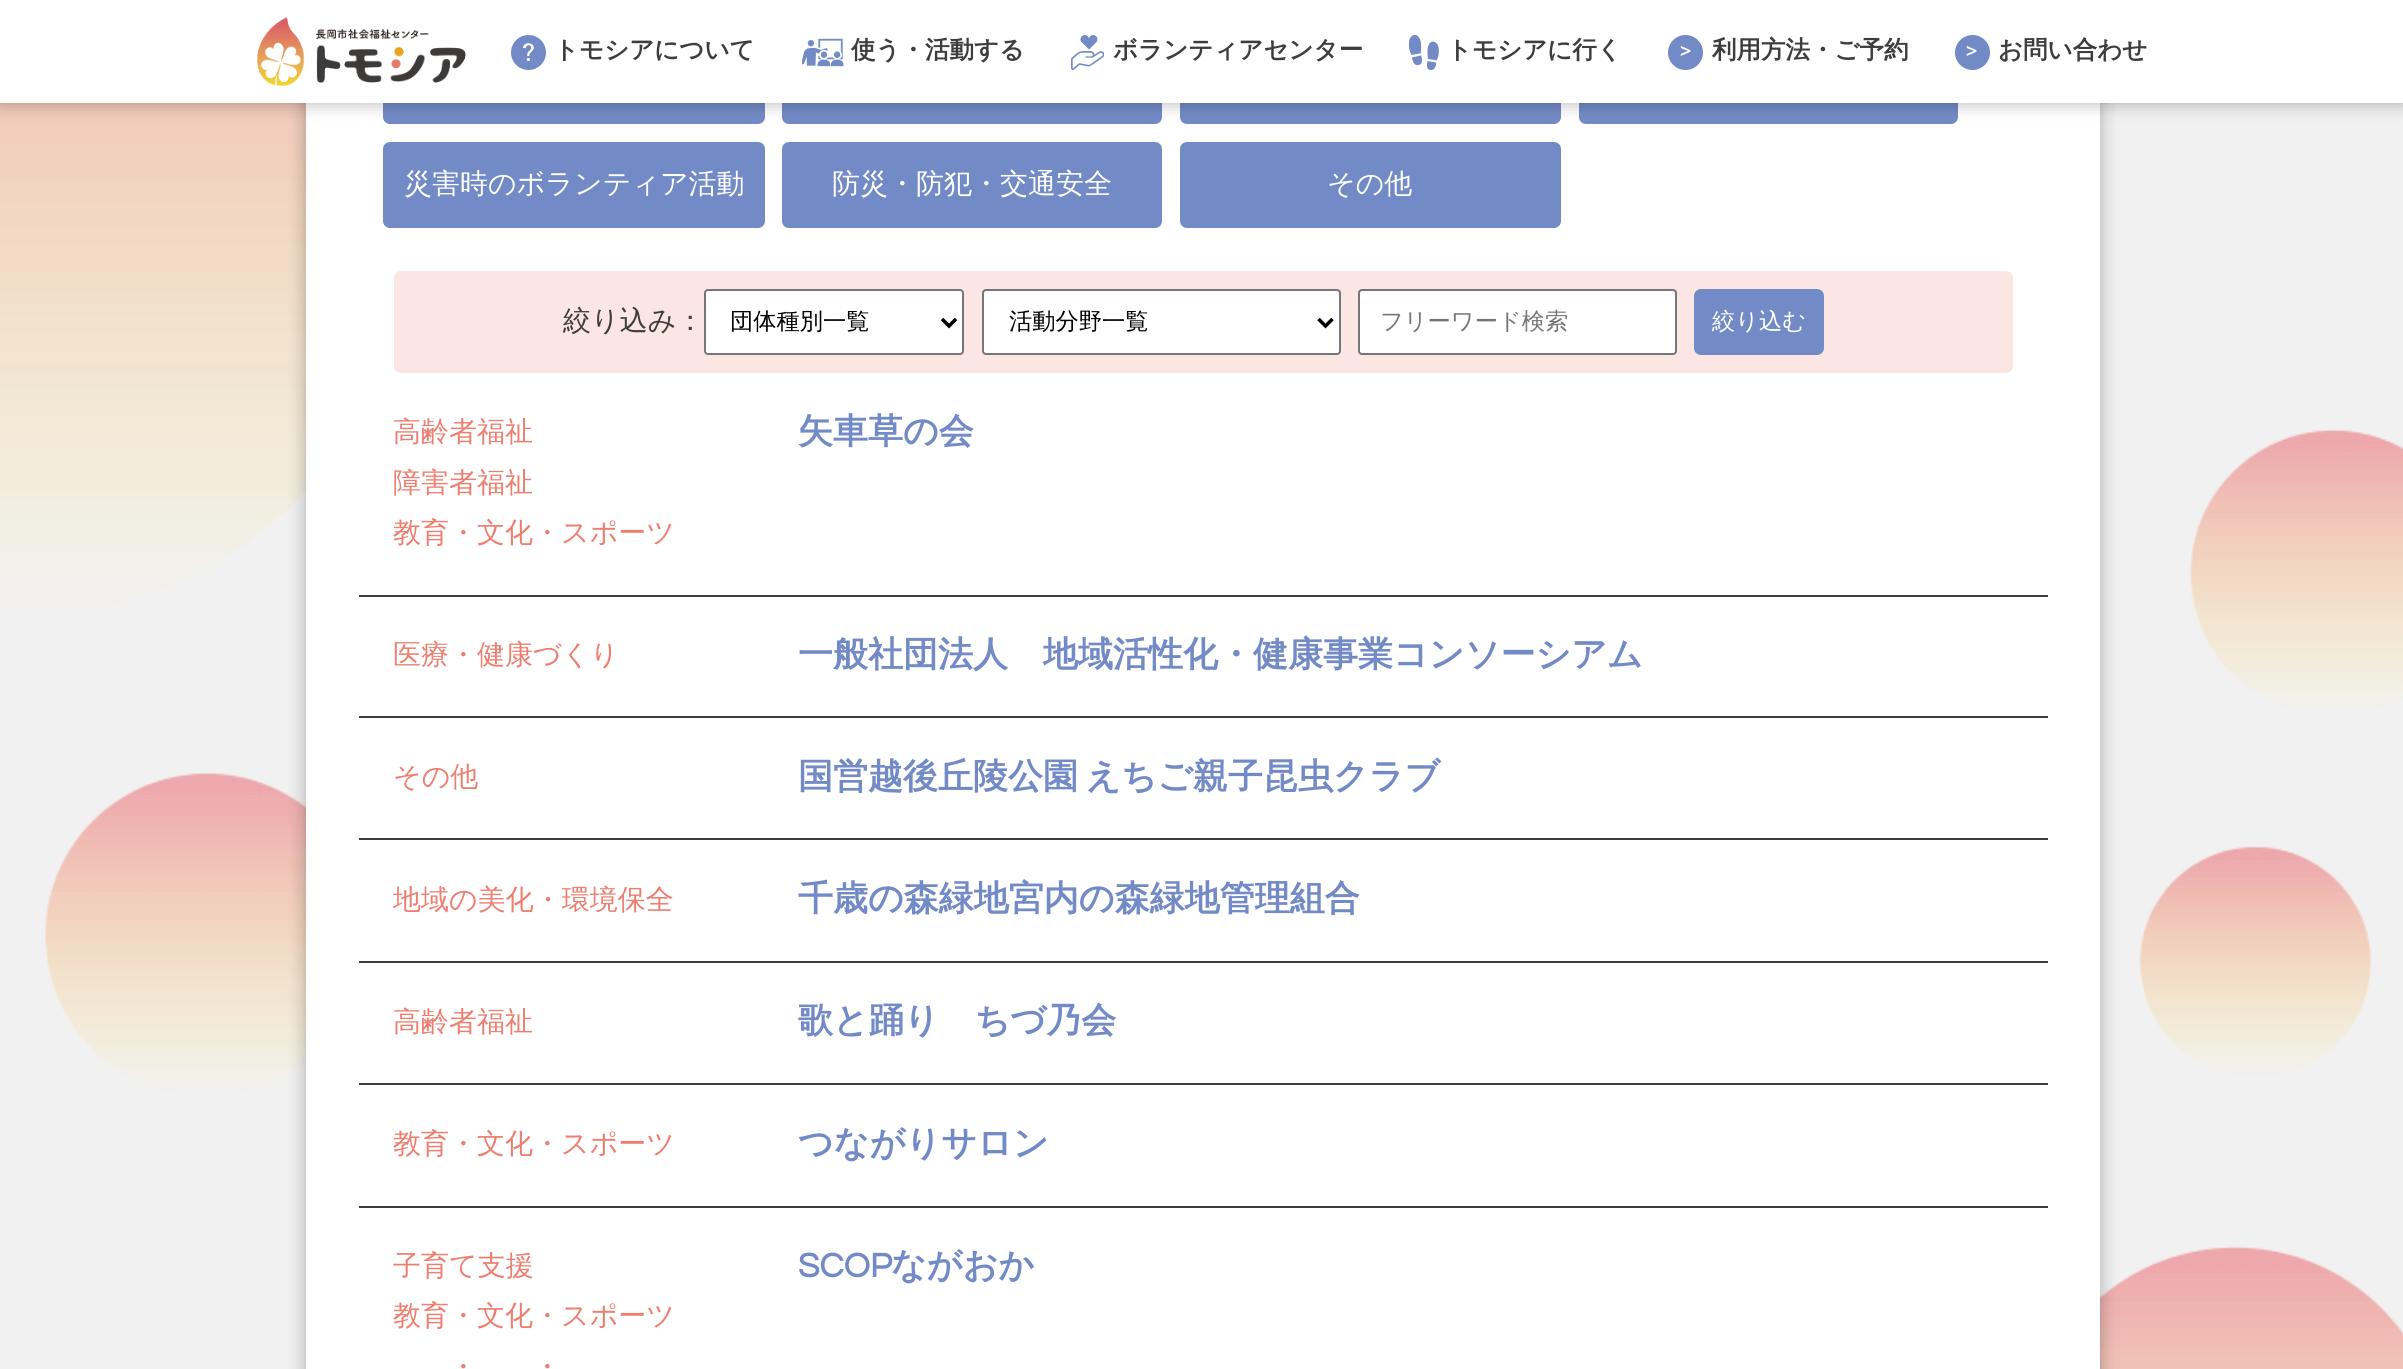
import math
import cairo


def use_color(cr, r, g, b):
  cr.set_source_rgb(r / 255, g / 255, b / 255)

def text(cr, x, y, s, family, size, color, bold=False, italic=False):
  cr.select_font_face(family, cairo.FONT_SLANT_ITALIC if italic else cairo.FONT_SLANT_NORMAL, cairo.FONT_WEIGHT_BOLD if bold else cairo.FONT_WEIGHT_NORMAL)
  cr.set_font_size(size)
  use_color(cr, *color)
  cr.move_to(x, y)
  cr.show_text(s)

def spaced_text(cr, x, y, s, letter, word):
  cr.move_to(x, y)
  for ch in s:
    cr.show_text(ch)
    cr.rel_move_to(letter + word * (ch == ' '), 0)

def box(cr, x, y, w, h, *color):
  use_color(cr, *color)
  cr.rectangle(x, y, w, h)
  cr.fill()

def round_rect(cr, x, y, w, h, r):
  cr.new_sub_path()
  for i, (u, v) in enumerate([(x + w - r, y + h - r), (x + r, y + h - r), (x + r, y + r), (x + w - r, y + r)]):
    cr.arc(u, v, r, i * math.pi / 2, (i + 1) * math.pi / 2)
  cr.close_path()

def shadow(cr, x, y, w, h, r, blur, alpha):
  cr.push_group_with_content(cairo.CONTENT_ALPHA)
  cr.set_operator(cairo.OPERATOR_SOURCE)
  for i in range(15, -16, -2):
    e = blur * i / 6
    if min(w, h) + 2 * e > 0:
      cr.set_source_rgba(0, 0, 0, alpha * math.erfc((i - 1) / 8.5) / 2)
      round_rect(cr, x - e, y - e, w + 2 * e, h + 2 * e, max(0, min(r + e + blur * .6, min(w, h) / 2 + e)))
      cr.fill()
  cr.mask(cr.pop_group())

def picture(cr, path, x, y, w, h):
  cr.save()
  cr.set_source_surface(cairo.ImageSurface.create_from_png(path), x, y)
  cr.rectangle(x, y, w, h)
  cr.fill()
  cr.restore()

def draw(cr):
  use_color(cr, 241, 241, 241)
  cr.paint()
  picture(cr, "img_01.png", 0, 103, 2403, 1266)
  use_color(cr, 0, 0, 0)
  shadow(cr, 306, -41, 1794, 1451, 14, 9, 0.3)
  box(cr, 306, 103, 1794, 1266, 255, 255, 255)
  use_color(cr, 114, 138, 198)
  round_rect(cr, 383, 40, 382, 84, 7)
  cr.fill()
  round_rect(cr, 782, 40, 380, 84, 7)
  cr.fill()
  round_rect(cr, 1180, 40, 381, 84, 7)
  cr.fill()
  round_rect(cr, 1579, 40, 379, 84, 7)
  cr.fill()
  use_color(cr, 0, 0, 0)
  shadow(cr, 0, 0, 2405, 103, 0, 9, 0.3)
  box(cr, 0, 0, 2403, 103, 255, 255, 255)
  picture(cr, "img_02.png", 257, 17, 209, 70)
  picture(cr, "img_03.png", 511, 35, 35, 35)
  picture(cr, "img_04.png", 802, 38, 42, 29)
  picture(cr, "img_05.png", 1071, 35, 33, 35)
  picture(cr, "img_06.png", 1409, 35, 30, 35)
  use_color(cr, 114, 138, 198)
  cr.arc(1685.5, 52.5, 17.5, 0, 2 * math.pi)
  cr.fill()
  cr.arc(1972.5, 52.5, 17.5, 0, 2 * math.pi)
  cr.fill()
  round_rect(cr, 383, 142, 382, 86, 7)
  cr.fill()
  round_rect(cr, 782, 142, 380, 86, 7)
  cr.fill()
  round_rect(cr, 1180, 142, 381, 86, 7)
  cr.fill()
  use_color(cr, 252, 230, 227)
  round_rect(cr, 394, 271, 1619, 102, 7)
  cr.fill()
  use_color(cr, 255, 255, 255)
  round_rect(cr, 705, 290, 258, 64, 3)
  cr.fill_preserve()
  use_color(cr, 118, 118, 118)
  cr.stroke()
  cr.new_path()
  cr.move_to(942, 319)
  cr.line_to(949, 326)
  cr.line_to(956, 319)
  use_color(cr, 0, 0, 0)
  cr.set_line_width(3.5)
  cr.stroke()
  use_color(cr, 255, 255, 255)
  round_rect(cr, 983, 290, 357, 64, 3)
  cr.fill_preserve()
  use_color(cr, 118, 118, 118)
  cr.set_line_width(2)
  cr.stroke()
  cr.new_path()
  cr.move_to(1318.5, 319)
  cr.line_to(1325.5, 326)
  cr.line_to(1332.5, 319)
  use_color(cr, 0, 0, 0)
  cr.set_line_width(3.5)
  cr.stroke()
  use_color(cr, 255, 255, 255)
  round_rect(cr, 1359, 290, 317, 64, 3)
  cr.fill_preserve()
  use_color(cr, 118, 118, 118)
  cr.set_line_width(2)
  cr.stroke()
  use_color(cr, 114, 138, 198)
  round_rect(cr, 1694, 289, 130, 66, 7)
  cr.fill()
  box(cr, 359, 595, 1689, 2, 63, 61, 60)
  box(cr, 359, 716, 1689, 2, 63, 61, 60)
  box(cr, 359, 838, 1689, 2, 63, 61, 60)
  box(cr, 359, 961, 1689, 2, 63, 61, 60)
  box(cr, 359, 1083, 1689, 2, 63, 61, 60)
  box(cr, 359, 1206, 1689, 2, 63, 61, 60)
  text(cr, 554, 58, "トモシアについて", "WenQuanYi Zen Hei", 24.5, (63, 61, 60), bold=True)
  text(cr, 851, 58, "使う・活動する", "WenQuanYi Zen Hei", 24.5, (63, 61, 60), bold=True)
  text(cr, 1113, 58, "ボランティアセンター", "WenQuanYi Zen Hei", 24.5, (63, 61, 60), bold=True)
  text(cr, 1447, 58, "トモシアに行く", "WenQuanYi Zen Hei", 24.5, (63, 61, 60), bold=True)
  text(cr, 1680, 56, ">", "Questrial", 19, (255, 255, 255), bold=True)
  text(cr, 1712, 58, "利用方法・ご予約", "WenQuanYi Zen Hei", 24.5, (63, 61, 60), bold=True)
  text(cr, 1966, 56, ">", "Questrial", 19, (255, 255, 255), bold=True)
  text(cr, 1998, 58, "お問い合わせ", "WenQuanYi Zen Hei", 24.5, (63, 61, 60), bold=True)
  text(cr, 404, 193, "災害時のボランティア活動", "WenQuanYi Zen Hei Medium", 28, (255, 255, 255))
  text(cr, 832, 193, "防災・防犯・交通安全", "WenQuanYi Zen Hei Medium", 28, (255, 255, 255))
  text(cr, 1327, 193, "その他", "WenQuanYi Zen Hei Medium", 28, (255, 255, 255))
  text(cr, 563, 330, "絞り込み：", "WenQuanYi Zen Hei Medium", 28, (63, 61, 60))
  text(cr, 730, 329, "団体種別一覧", "WenQuanYi Zen Hei Medium", 23.25, (0, 0, 0))
  text(cr, 1009, 329, "活動分野一覧", "WenQuanYi Zen Hei Medium", 23.25, (0, 0, 0))
  text(cr, 1380, 329, "フリーワード検索", "WenQuanYi Zen Hei Medium", 23.25, (117, 117, 117))
  text(cr, 1712, 329, "絞り込む", "WenQuanYi Zen Hei Medium", 23.25, (255, 255, 255))
  text(cr, 393, 441, "高齢者福祉", "WenQuanYi Zen Hei Medium", 28, (238, 126, 112))
  text(cr, 393, 492, "障害者福祉", "WenQuanYi Zen Hei Medium", 28, (238, 126, 112))
  text(cr, 393, 542, "教育・文化・スポーツ", "WenQuanYi Zen Hei Medium", 28, (238, 126, 112))
  text(cr, 798, 443, "矢車草の会", "WenQuanYi Zen Hei", 35, (114, 138, 198), bold=True)
  text(cr, 393, 664, "医療・健康づくり", "WenQuanYi Zen Hei Medium", 28, (238, 126, 112))
  text(cr, 798, 666, "一般社団法人　地域活性化・健康事業コンソーシアム", "WenQuanYi Zen Hei", 35, (114, 138, 198), bold=True)
  text(cr, 393, 786, "その他", "WenQuanYi Zen Hei Medium", 28, (238, 126, 112))
  cr.select_font_face("WenQuanYi Zen Hei", cairo.FONT_SLANT_NORMAL, cairo.FONT_WEIGHT_BOLD)
  cr.set_font_size(35)
  use_color(cr, 114, 138, 198)
  spaced_text(cr, 798, 788, "国営越後丘陵公園 えちご親子昆虫クラブ", 0, -3)
  text(cr, 393, 909, "地域の美化・環境保全", "WenQuanYi Zen Hei Medium", 28, (238, 126, 112))
  text(cr, 798, 910, "千歳の森緑地宮内の森緑地管理組合", "WenQuanYi Zen Hei", 35, (114, 138, 198), bold=True)
  text(cr, 393, 1031, "高齢者福祉", "WenQuanYi Zen Hei Medium", 28, (238, 126, 112))
  text(cr, 798, 1032, "歌と踊り　ちづ乃会", "WenQuanYi Zen Hei", 35, (114, 138, 198), bold=True)
  text(cr, 393, 1153, "教育・文化・スポーツ", "WenQuanYi Zen Hei Medium", 28, (238, 126, 112))
  text(cr, 798, 1155, "つながりサロン", "WenQuanYi Zen Hei", 35, (114, 138, 198), bold=True)
  text(cr, 393, 1275, "子育て支援", "WenQuanYi Zen Hei Medium", 28, (238, 126, 112))
  text(cr, 393, 1325, "教育・文化・スポーツ", "WenQuanYi Zen Hei Medium", 28, (238, 126, 112))
  text(cr, 449, 1376, "・", "WenQuanYi Zen Hei Medium", 28, (238, 126, 112))
  text(cr, 533, 1376, "・", "WenQuanYi Zen Hei Medium", 28, (238, 126, 112))
  text(cr, 798, 1277, "SCOP", "Questrial", 35, (114, 138, 198), bold=True)
  text(cr, 891, 1277, "ながおか", "WenQuanYi Zen Hei", 35, (114, 138, 198), bold=True)


surface = cairo.ImageSurface(cairo.FORMAT_RGB24, 2403, 1369)
cr = cairo.Context(surface)
options = cairo.FontOptions()
options.set_hint_metrics(cairo.HINT_METRICS_OFF)
options.set_hint_style(cairo.HINT_STYLE_NONE)
cr.set_font_options(options)
cr.set_miter_limit(4)
draw(cr)
surface.write_to_png("out.png")
